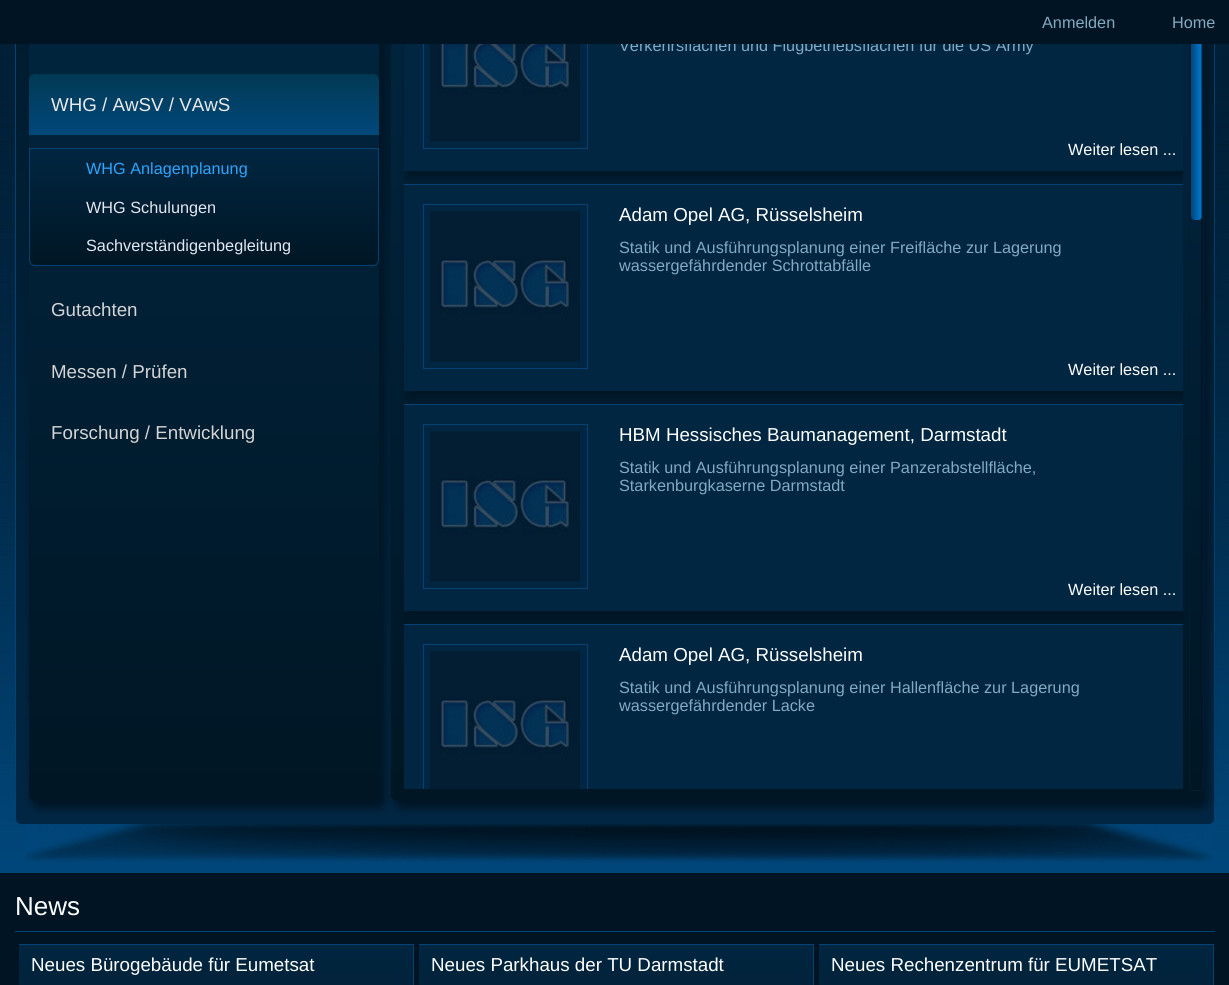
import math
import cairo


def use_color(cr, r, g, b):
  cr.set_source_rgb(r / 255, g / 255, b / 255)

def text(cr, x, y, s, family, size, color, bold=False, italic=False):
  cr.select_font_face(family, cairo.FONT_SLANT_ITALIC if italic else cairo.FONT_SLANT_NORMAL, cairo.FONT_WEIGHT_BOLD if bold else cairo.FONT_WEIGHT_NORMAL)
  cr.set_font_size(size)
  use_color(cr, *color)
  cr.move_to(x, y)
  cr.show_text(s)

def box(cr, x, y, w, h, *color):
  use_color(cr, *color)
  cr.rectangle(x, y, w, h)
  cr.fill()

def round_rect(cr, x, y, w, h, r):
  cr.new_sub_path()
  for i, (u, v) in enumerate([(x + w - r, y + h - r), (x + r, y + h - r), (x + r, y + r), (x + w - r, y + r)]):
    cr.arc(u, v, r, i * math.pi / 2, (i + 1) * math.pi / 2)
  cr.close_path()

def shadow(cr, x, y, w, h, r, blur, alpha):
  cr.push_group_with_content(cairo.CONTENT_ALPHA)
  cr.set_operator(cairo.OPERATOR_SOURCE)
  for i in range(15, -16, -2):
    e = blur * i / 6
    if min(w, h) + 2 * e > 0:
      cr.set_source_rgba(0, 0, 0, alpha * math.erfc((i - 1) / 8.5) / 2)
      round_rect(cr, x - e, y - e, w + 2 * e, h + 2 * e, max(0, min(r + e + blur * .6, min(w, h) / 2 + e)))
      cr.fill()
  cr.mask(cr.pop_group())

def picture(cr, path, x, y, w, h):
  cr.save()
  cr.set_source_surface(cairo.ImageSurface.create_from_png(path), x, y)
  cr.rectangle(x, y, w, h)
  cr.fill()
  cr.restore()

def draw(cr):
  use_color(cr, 255, 255, 255)
  cr.paint()
  picture(cr, "img_01.png", 0, 44, 1229, 829)
  cr.save()
  round_rect(cr, 15, -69, 1200, 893, 6)
  cr.clip()
  gradient = cairo.LinearGradient(16, -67, 16, 824)
  gradient.add_color_stop_rgba(0, 0, 0.106, 0.18, 1)
  gradient.add_color_stop_rgba(1, 0.004, 0.149, 0.263, 1)
  cr.set_source(gradient)
  cr.new_path()
  cr.move_to(15, -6)
  cr.line_to(1215, -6)
  cr.line_to(1215, 818)
  cr.curve_to(1215, 821.5, 1212.5, 824, 1209, 824)
  cr.line_to(21, 824)
  cr.curve_to(17.5, 824, 15, 821.5, 15, 818)
  cr.close_path()
  cr.fill()
  cr.restore()
  use_color(cr, 1, 67, 117)
  cr.set_fill_rule(cairo.FILL_RULE_EVEN_ODD)
  cr.new_path()
  cr.move_to(21, -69)
  cr.line_to(1209, -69)
  cr.curve_to(1212, -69, 1215, -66, 1215, -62)
  cr.line_to(1215, 818)
  cr.curve_to(1215, 821, 1212, 824, 1209, 824)
  cr.line_to(21, 824)
  cr.curve_to(18, 824, 15, 821, 15, 818)
  cr.line_to(15, -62)
  cr.curve_to(15, -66, 18, -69, 21, -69)
  cr.close_path()
  cr.move_to(21, -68)
  cr.line_to(1209, -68)
  cr.curve_to(1212, -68, 1214, -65, 1214, -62)
  cr.line_to(1214, 818)
  cr.curve_to(1214, 821, 1212, 824, 1209, 824)
  cr.line_to(21, 824)
  cr.curve_to(18, 824, 16, 821, 16, 818)
  cr.line_to(16, -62)
  cr.curve_to(16, -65, 18, -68, 21, -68)
  cr.close_path()
  cr.fill()
  use_color(cr, 0, 22, 38)
  shadow(cr, 31, -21, 355, 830, 9, 4, 1)
  gradient = cairo.LinearGradient(29, -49, 29, 801)
  gradient.add_color_stop_rgba(0, 0.004, 0.149, 0.255, 1)
  gradient.add_color_stop_rgba(1, 0, 0.086, 0.141, 1)
  cr.set_source(gradient)
  round_rect(cr, 29, -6, 350, 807, 6)
  cr.fill()
  gradient = cairo.LinearGradient(29, 74, 29, 135)
  gradient.add_color_stop_rgba(0, 0.004, 0.224, 0.325, 1)
  gradient.add_color_stop_rgba(1, 0.004, 0.282, 0.486, 1)
  cr.set_source(gradient)
  cr.new_path()
  cr.move_to(35, 74)
  cr.line_to(373, 74)
  cr.curve_to(376.5, 74, 379, 76.5, 379, 80)
  cr.line_to(379, 135)
  cr.line_to(29, 135)
  cr.line_to(29, 80)
  cr.curve_to(29, 76.5, 31.5, 74, 35, 74)
  cr.close_path()
  cr.fill()
  cr.save()
  cr.set_fill_rule(cairo.FILL_RULE_WINDING)
  cr.new_path()
  cr.move_to(29, 148)
  cr.line_to(379, 148)
  cr.line_to(379, 260)
  cr.curve_to(379, 263.5, 376.5, 266, 373, 266)
  cr.line_to(35, 266)
  cr.curve_to(31.5, 266, 29, 263.5, 29, 260)
  cr.close_path()
  cr.clip()
  gradient = cairo.LinearGradient(30, 149, 30, 265)
  gradient.add_color_stop_rgba(0, 0.004, 0.149, 0.255, 1)
  gradient.add_color_stop_rgba(1, 0, 0.086, 0.141, 1)
  cr.set_source(gradient)
  cr.rectangle(29, 149, 350, 116)
  cr.fill()
  cr.restore()
  cr.new_path()
  cr.move_to(29.5, 148.5)
  cr.line_to(378.5, 148.5)
  cr.line_to(378.5, 260)
  cr.curve_to(378.5, 263, 376, 265.5, 373, 265.5)
  cr.line_to(35, 265.5)
  cr.curve_to(32, 265.5, 29.5, 263, 29.5, 260)
  cr.close_path()
  use_color(cr, 1, 67, 117)
  cr.set_line_width(1)
  cr.stroke()
  use_color(cr, 0, 22, 38)
  shadow(cr, 394, -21, 815, 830, 9, 4, 1)
  gradient = cairo.LinearGradient(391, -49, 391, 801)
  gradient.add_color_stop_rgba(0, 0.004, 0.149, 0.255, 1)
  gradient.add_color_stop_rgba(1, 0, 0.086, 0.141, 1)
  cr.set_source(gradient)
  round_rect(cr, 391, -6, 810, 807, 6)
  cr.fill()
  round_rect(cr, 1189.5, -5.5, 14, 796, 4.5)
  use_color(cr, 1, 29, 51)
  cr.stroke()
  cr.save()
  cr.set_fill_rule(cairo.FILL_RULE_WINDING)
  round_rect(cr, 1190, -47, 13, 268, 5)
  cr.clip()
  gradient = cairo.LinearGradient(1191, 87, 1201, 87)
  gradient.add_color_stop_rgba(0, 0.004, 0.275, 0.478, 1)
  gradient.add_color_stop_rgba(1, 0.008, 0.463, 0.796, 1)
  cr.set_source(gradient)
  cr.rectangle(1191, 44, 10, 177)
  cr.fill()
  gradient = cairo.LinearGradient(1201, 87, 1211, 87)
  gradient.add_color_stop_rgba(0, 0.004, 0.275, 0.478, 1)
  gradient.add_color_stop_rgba(1, 0.008, 0.463, 0.796, 1)
  cr.set_source(gradient)
  cr.rectangle(1201, 44, 2, 177)
  cr.fill()
  cr.restore()
  round_rect(cr, 1190.5, -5.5, 12, 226, 4.5)
  cr.stroke()
  cr.save()
  cr.set_fill_rule(cairo.FILL_RULE_WINDING)
  cr.rectangle(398, 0, 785, 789)
  cr.clip()
  use_color(cr, 0, 22, 38)
  shadow(cr, 406, -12, 815, 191, 0, 4, 1)
  cr.restore()
  box(cr, 404, 44, 779, 127, 1, 38, 65)
  cr.rectangle(423.5, -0.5, 164, 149)
  use_color(cr, 1, 67, 117)
  cr.stroke()
  picture(cr, "img_02.png", 430, 44, 150, 98)
  cr.save()
  cr.set_fill_rule(cairo.FILL_RULE_WINDING)
  cr.rectangle(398, 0, 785, 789)
  cr.clip()
  use_color(cr, 0, 22, 38)
  shadow(cr, 406, 186, 815, 213, 0, 4, 1)
  cr.restore()
  box(cr, 404, 185, 779, 206, 1, 38, 65)
  box(cr, 404, 184, 779, 1, 1, 67, 117)
  cr.rectangle(423.5, 204.5, 164, 164)
  cr.stroke()
  picture(cr, "img_03.png", 430, 211, 150, 151)
  cr.save()
  cr.set_fill_rule(cairo.FILL_RULE_WINDING)
  cr.rectangle(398, 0, 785, 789)
  cr.clip()
  use_color(cr, 0, 22, 38)
  shadow(cr, 406, 406, 815, 213, 0, 4, 1)
  cr.restore()
  box(cr, 404, 405, 779, 206, 1, 38, 65)
  box(cr, 404, 404, 779, 1, 1, 67, 117)
  cr.rectangle(423.5, 424.5, 164, 164)
  cr.stroke()
  picture(cr, "img_03.png", 430, 431, 150, 151)
  box(cr, 404, 625, 779, 164, 1, 38, 65)
  box(cr, 404, 624, 779, 1, 1, 67, 117)
  cr.save()
  cr.set_fill_rule(cairo.FILL_RULE_WINDING)
  cr.rectangle(398, 0, 785, 789)
  cr.clip()
  cr.rectangle(423.5, 644.5, 164, 164)
  cr.stroke()
  cr.restore()
  picture(cr, "img_04.png", 430, 651, 150, 138)
  picture(cr, "img_05.png", 25, 824, 1187, 39)
  box(cr, 0, 873, 1229, 112, 1, 20, 35)
  box(cr, 15, 931, 1200, 1, 1, 67, 117)
  gradient = cairo.LinearGradient(19, 945, 19, 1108)
  gradient.add_color_stop_rgba(0, 0.004, 0.149, 0.255, 1)
  gradient.add_color_stop_rgba(1, 0, 0.086, 0.141, 1)
  cr.set_source(gradient)
  cr.rectangle(19, 945, 394, 40)
  cr.fill()
  box(cr, 19, 944, 395, 1, 1, 67, 117)
  box(cr, 413, 944, 1, 41, 1, 67, 117)
  gradient = cairo.LinearGradient(419, 945, 419, 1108)
  gradient.add_color_stop_rgba(0, 0.004, 0.149, 0.255, 1)
  gradient.add_color_stop_rgba(1, 0, 0.086, 0.141, 1)
  cr.set_source(gradient)
  cr.rectangle(419, 945, 394, 40)
  cr.fill()
  box(cr, 419, 944, 395, 1, 1, 67, 117)
  box(cr, 813, 944, 1, 41, 1, 67, 117)
  gradient = cairo.LinearGradient(819, 945, 819, 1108)
  gradient.add_color_stop_rgba(0, 0.004, 0.149, 0.255, 1)
  gradient.add_color_stop_rgba(1, 0, 0.086, 0.141, 1)
  cr.set_source(gradient)
  cr.rectangle(819, 945, 394, 40)
  cr.fill()
  box(cr, 819, 944, 395, 1, 1, 67, 117)
  box(cr, 1213, 944, 1, 41, 1, 67, 117)
  text(cr, 51, 111, "WHG / AwSV / VAwS", "Liberation Sans", 18.75, (233, 233, 233))
  text(cr, 86, 174, "WHG Anlagenplanung", "Liberation Sans", 16.25, (45, 165, 253))
  text(cr, 86, 213, "WHG Schulungen", "Liberation Sans", 16.25, (227, 231, 241))
  text(cr, 86, 251, "Sachverständigenbegleitung", "Liberation Sans", 16.25, (227, 231, 241))
  text(cr, 51, 316, "Gutachten", "Liberation Sans", 18.75, (212, 212, 212))
  text(cr, 51, 378, "Messen / Prüfen", "Liberation Sans", 18.75, (212, 212, 212))
  text(cr, 51, 439, "Forschung / Entwicklung", "Liberation Sans", 18.75, (212, 212, 212))
  text(cr, 619, 51, "Verkehrsflächen und Flugbetriebsflächen für die US Army", "Liberation Sans", 16.25, (131, 170, 194))
  box(cr, 0, 0, 1229, 44, 1, 20, 35)
  text(cr, 1042, 28, "Anmelden", "Liberation Sans", 16.25, (131, 170, 194))
  text(cr, 1172, 28, "Home", "Liberation Sans", 16.25, (131, 170, 194))
  text(cr, 1068, 155, "Weiter lesen ...", "Liberation Sans", 16.25, (255, 255, 255))
  text(cr, 619, 221, "Adam Opel AG, Rüsselsheim", "Liberation Sans", 18.75, (255, 255, 255))
  text(cr, 619, 253, "Statik und Ausführungsplanung einer Freifläche zur Lagerung", "Liberation Sans", 16.25, (131, 170, 194))
  text(cr, 619, 271, "wassergefährdender Schrottabfälle", "Liberation Sans", 16.25, (131, 170, 194))
  text(cr, 1068, 375, "Weiter lesen ...", "Liberation Sans", 16.25, (255, 255, 255))
  text(cr, 619, 441, "HBM Hessisches Baumanagement, Darmstadt", "Liberation Sans", 18.75, (255, 255, 255))
  text(cr, 619, 473, "Statik und Ausführungsplanung einer Panzerabstellfläche,", "Liberation Sans", 16.25, (131, 170, 194))
  text(cr, 619, 491, "Starkenburgkaserne Darmstadt", "Liberation Sans", 16.25, (131, 170, 194))
  text(cr, 1068, 595, "Weiter lesen ...", "Liberation Sans", 16.25, (255, 255, 255))
  text(cr, 619, 661, "Adam Opel AG, Rüsselsheim", "Liberation Sans", 18.75, (255, 255, 255))
  text(cr, 619, 693, "Statik und Ausführungsplanung einer Hallenfläche zur Lagerung", "Liberation Sans", 16.25, (131, 170, 194))
  text(cr, 619, 711, "wassergefährdender Lacke", "Liberation Sans", 16.25, (131, 170, 194))
  text(cr, 15, 915, "News", "Liberation Sans", 26, (255, 255, 255))
  text(cr, 31, 971, "Neues Bürogebäude für Eumetsat", "Liberation Sans", 18.75, (255, 255, 255))
  text(cr, 431, 971, "Neues Parkhaus der TU Darmstadt", "Liberation Sans", 18.75, (255, 255, 255))
  text(cr, 831, 971, "Neues Rechenzentrum für EUMETSAT", "Liberation Sans", 18.75, (255, 255, 255))


surface = cairo.ImageSurface(cairo.FORMAT_RGB24, 1229, 985)
cr = cairo.Context(surface)
options = cairo.FontOptions()
options.set_hint_metrics(cairo.HINT_METRICS_OFF)
options.set_hint_style(cairo.HINT_STYLE_NONE)
cr.set_font_options(options)
cr.set_miter_limit(4)
draw(cr)
surface.write_to_png("out.png")
